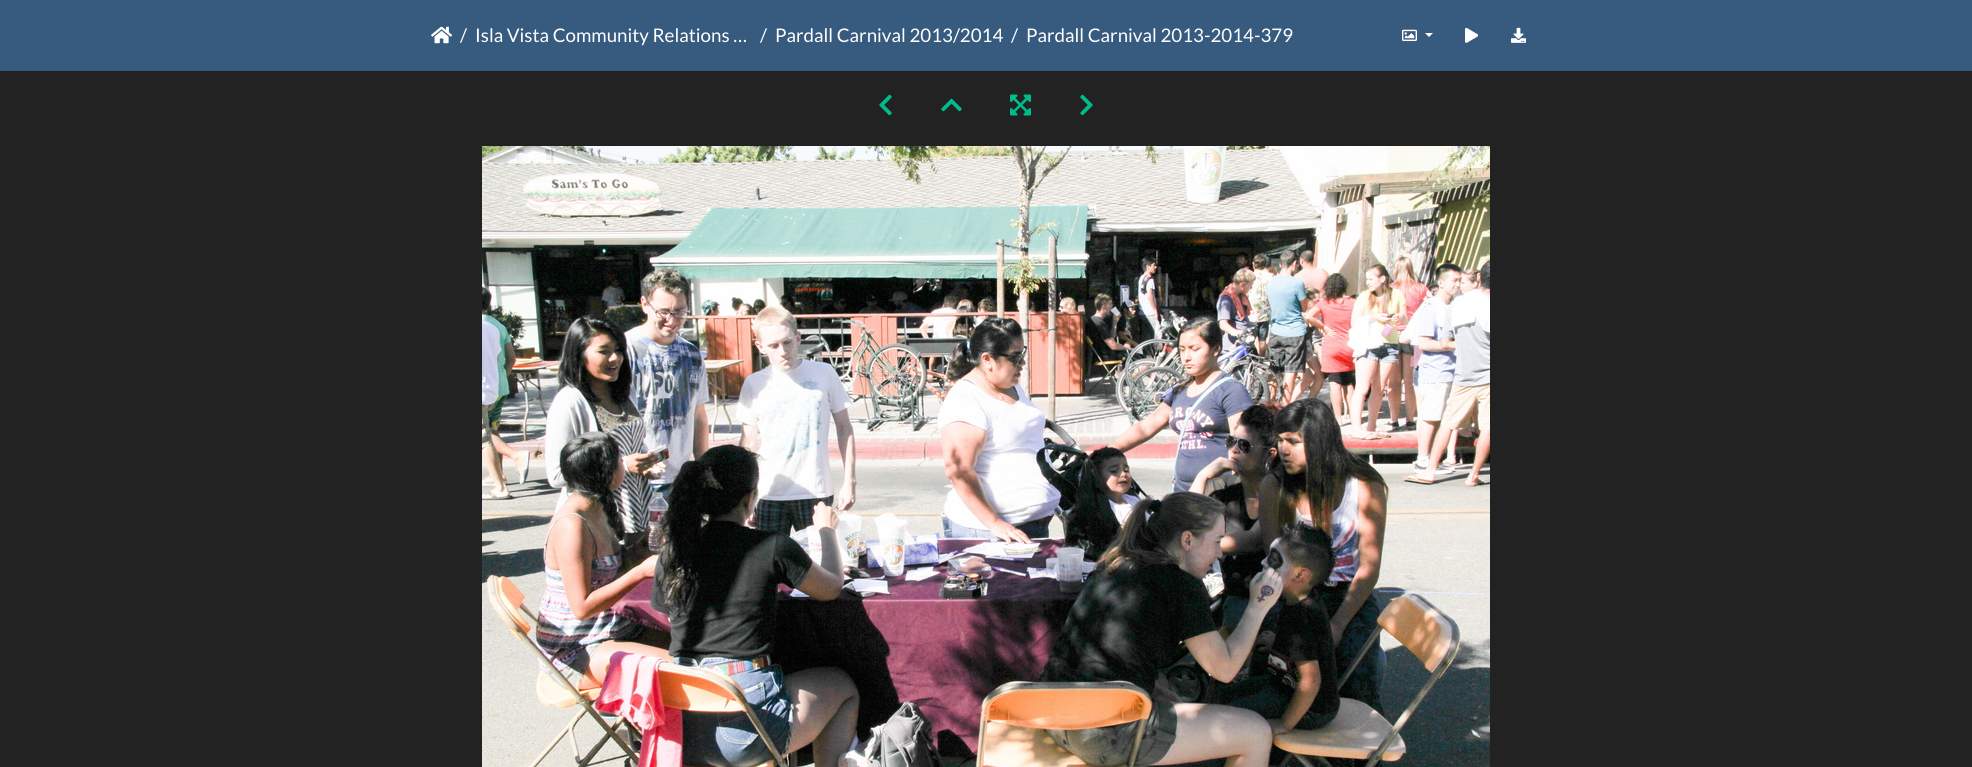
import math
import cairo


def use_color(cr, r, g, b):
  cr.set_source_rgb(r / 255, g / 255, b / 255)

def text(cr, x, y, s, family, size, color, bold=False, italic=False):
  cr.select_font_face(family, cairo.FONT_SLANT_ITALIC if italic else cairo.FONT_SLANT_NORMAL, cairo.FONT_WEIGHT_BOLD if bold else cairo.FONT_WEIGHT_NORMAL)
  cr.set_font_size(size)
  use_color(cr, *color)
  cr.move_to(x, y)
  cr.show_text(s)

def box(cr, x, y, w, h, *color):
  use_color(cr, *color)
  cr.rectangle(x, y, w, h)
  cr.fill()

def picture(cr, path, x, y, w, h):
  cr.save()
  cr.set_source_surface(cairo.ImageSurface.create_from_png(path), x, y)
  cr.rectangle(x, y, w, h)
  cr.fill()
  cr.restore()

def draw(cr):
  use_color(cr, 34, 34, 34)
  cr.paint()
  box(cr, 0, 0, 1972, 71, 55, 90, 127)
  picture(cr, "img_01.png", 431, 26, 21, 18)
  picture(cr, "img_02.png", 1402, 29, 15, 12)
  use_color(cr, 255, 255, 255)
  cr.new_path()
  cr.move_to(1425, 33)
  cr.line_to(1433, 33)
  cr.line_to(1429, 37)
  cr.close_path()
  cr.fill()
  picture(cr, "img_03.png", 1465, 27, 14, 16)
  picture(cr, "img_04.png", 1511, 27, 15, 16)
  picture(cr, "img_05.png", 879, 94, 13, 22)
  picture(cr, "img_06.png", 941, 98, 21, 14)
  picture(cr, "img_07.png", 1010, 94, 21, 22)
  picture(cr, "img_08.png", 1080, 94, 13, 22)
  picture(cr, "img_09.png", 482, 146, 1008, 621)
  text(cr, 460, 42, "/", "Lato", 18.75, (255, 255, 255))
  text(cr, 475, 42, "Isla Vista Community Relations …", "Lato", 18.75, (255, 255, 255))
  text(cr, 760, 42, "/", "Lato", 18.75, (255, 255, 255))
  text(cr, 775, 42, "Pardall Carnival 2013/2014", "Lato", 18.75, (255, 255, 255))
  text(cr, 1011, 42, "/", "Lato", 18.75, (255, 255, 255))
  text(cr, 1026, 42, "Pardall Carnival 2013-2014-379", "Lato", 18.75, (255, 255, 255))


surface = cairo.ImageSurface(cairo.FORMAT_RGB24, 1972, 767)
cr = cairo.Context(surface)
options = cairo.FontOptions()
options.set_hint_metrics(cairo.HINT_METRICS_OFF)
options.set_hint_style(cairo.HINT_STYLE_NONE)
cr.set_font_options(options)
cr.set_miter_limit(4)
draw(cr)
surface.write_to_png("out.png")
